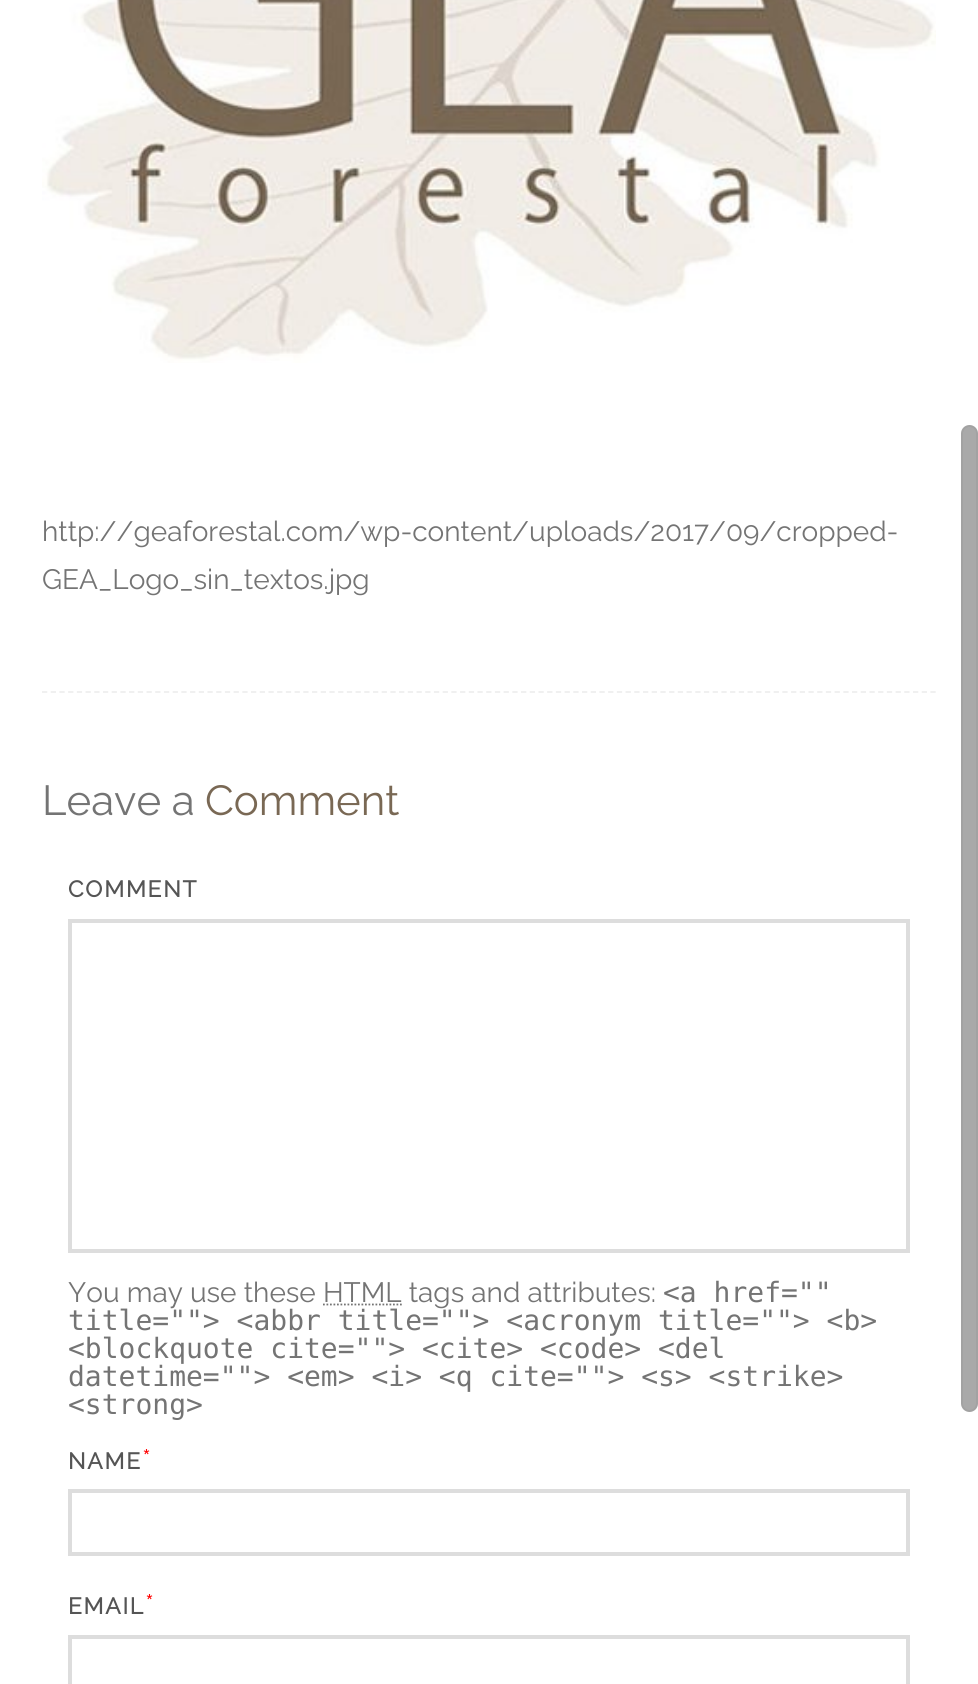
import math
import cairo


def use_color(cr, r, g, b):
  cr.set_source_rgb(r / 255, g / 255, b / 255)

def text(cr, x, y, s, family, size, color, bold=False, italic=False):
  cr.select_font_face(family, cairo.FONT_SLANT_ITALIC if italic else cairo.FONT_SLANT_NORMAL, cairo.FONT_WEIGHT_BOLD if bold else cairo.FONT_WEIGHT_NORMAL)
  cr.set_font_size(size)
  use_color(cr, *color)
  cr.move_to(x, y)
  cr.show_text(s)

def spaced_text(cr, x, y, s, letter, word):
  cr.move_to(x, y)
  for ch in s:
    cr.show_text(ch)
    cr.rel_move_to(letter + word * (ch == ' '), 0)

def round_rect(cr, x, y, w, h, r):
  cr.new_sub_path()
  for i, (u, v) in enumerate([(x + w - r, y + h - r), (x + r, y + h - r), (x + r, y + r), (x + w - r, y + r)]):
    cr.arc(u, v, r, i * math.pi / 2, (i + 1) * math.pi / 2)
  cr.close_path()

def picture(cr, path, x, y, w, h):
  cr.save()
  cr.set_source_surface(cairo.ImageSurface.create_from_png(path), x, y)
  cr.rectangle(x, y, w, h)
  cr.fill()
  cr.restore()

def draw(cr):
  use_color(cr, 255, 255, 255)
  cr.paint()
  picture(cr, "img_01.png", 42, 0, 894, 363)
  cr.new_path()
  cr.move_to(42, 692)
  cr.line_to(936, 692)
  use_color(cr, 238, 238, 238)
  cr.set_line_width(1.8)
  cr.set_dash([5.25, 3.46])
  cr.stroke()
  cr.rectangle(70, 921, 838, 330)
  use_color(cr, 221, 221, 221)
  cr.set_line_width(4)
  cr.set_dash([])
  cr.stroke()
  cr.new_path()
  cr.move_to(323, 1304.5)
  cr.line_to(402, 1304.5)
  use_color(cr, 116, 116, 116)
  cr.set_line_width(1.8)
  cr.set_dash([1.75, 1.75])
  cr.stroke()
  cr.rectangle(70, 1491, 838, 63)
  use_color(cr, 221, 221, 221)
  cr.set_line_width(4)
  cr.set_dash([])
  cr.stroke()
  cr.rectangle(70, 1637, 838, 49)
  cr.stroke()
  use_color(cr, 169, 169, 169)
  round_rect(cr, 962, 426, 15, 985, 7.5)
  cr.fill_preserve()
  use_color(cr, 162, 162, 162)
  cr.set_line_width(2)
  cr.stroke()
  text(cr, 42, 541, "http://geaforestal.com/wp-content/uploads/2017/09/cropped-", "Raleway Thin", 28, (116, 116, 116))
  text(cr, 42, 589, "GEA_Logo_sin_textos.jpg", "Raleway Thin", 28, (116, 116, 116))
  text(cr, 42, 815, "Leave a", "Raleway Thin", 42, (116, 116, 116))
  text(cr, 205, 815, "Comment", "Raleway Thin", 42, (121, 104, 84))
  cr.select_font_face("Raleway", cairo.FONT_SLANT_NORMAL, cairo.FONT_WEIGHT_BOLD)
  cr.set_font_size(22.75)
  use_color(cr, 85, 85, 85)
  spaced_text(cr, 68, 897, "COMMENT", 1.75, 0)
  text(cr, 68, 1302, "You may use these HTML tags and attributes:", "Raleway Thin", 28, (116, 116, 116))
  text(cr, 663, 1302, "<a href=\"\"", "DejaVu Sans Mono", 28, (116, 116, 116))
  text(cr, 68, 1330, "title=\"\"> <abbr title=\"\"> <acronym title=\"\"> <b>", "DejaVu Sans Mono", 28, (116, 116, 116))
  text(cr, 68, 1358, "<blockquote cite=\"\"> <cite> <code> <del", "DejaVu Sans Mono", 28, (116, 116, 116))
  text(cr, 68, 1386, "datetime=\"\"> <em> <i> <q cite=\"\"> <s> <strike>", "DejaVu Sans Mono", 28, (116, 116, 116))
  text(cr, 68, 1414, "<strong>", "DejaVu Sans Mono", 28, (116, 116, 116))
  cr.select_font_face("Raleway", cairo.FONT_SLANT_NORMAL, cairo.FONT_WEIGHT_BOLD)
  cr.set_font_size(22.75)
  use_color(cr, 85, 85, 85)
  spaced_text(cr, 68, 1469, "NAME", 1.75, 0)
  text(cr, 142, 1469, "*", "Raleway Thin", 28, (255, 0, 0))
  cr.select_font_face("Raleway", cairo.FONT_SLANT_NORMAL, cairo.FONT_WEIGHT_BOLD)
  cr.set_font_size(22.75)
  use_color(cr, 85, 85, 85)
  spaced_text(cr, 68, 1614, "EMAIL", 1.75, 0)
  text(cr, 145, 1614, "*", "Raleway Thin", 28, (255, 0, 0))


surface = cairo.ImageSurface(cairo.FORMAT_RGB24, 978, 1684)
cr = cairo.Context(surface)
options = cairo.FontOptions()
options.set_hint_metrics(cairo.HINT_METRICS_OFF)
options.set_hint_style(cairo.HINT_STYLE_NONE)
cr.set_font_options(options)
cr.set_miter_limit(4)
draw(cr)
surface.write_to_png("out.png")
